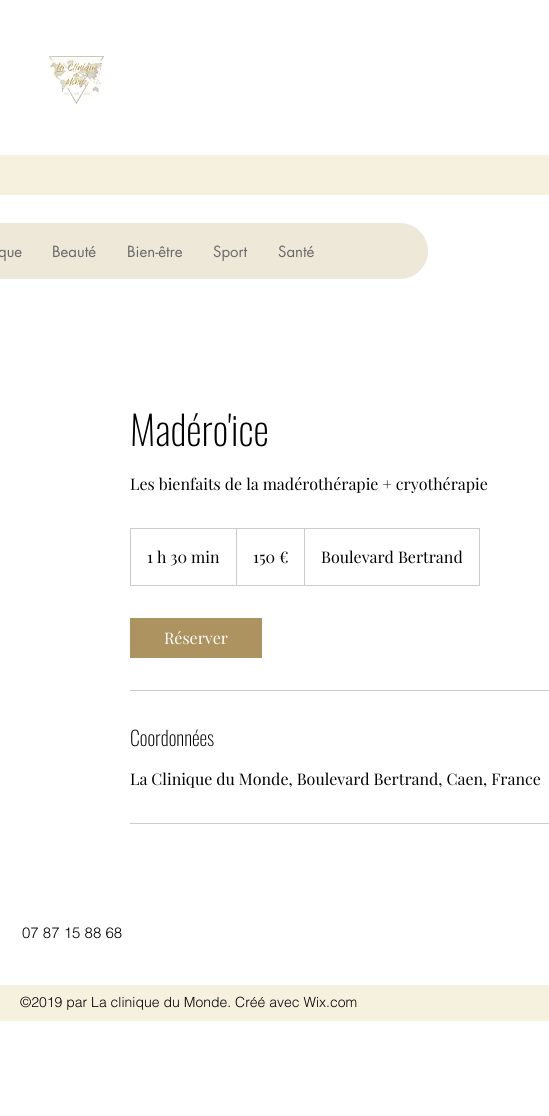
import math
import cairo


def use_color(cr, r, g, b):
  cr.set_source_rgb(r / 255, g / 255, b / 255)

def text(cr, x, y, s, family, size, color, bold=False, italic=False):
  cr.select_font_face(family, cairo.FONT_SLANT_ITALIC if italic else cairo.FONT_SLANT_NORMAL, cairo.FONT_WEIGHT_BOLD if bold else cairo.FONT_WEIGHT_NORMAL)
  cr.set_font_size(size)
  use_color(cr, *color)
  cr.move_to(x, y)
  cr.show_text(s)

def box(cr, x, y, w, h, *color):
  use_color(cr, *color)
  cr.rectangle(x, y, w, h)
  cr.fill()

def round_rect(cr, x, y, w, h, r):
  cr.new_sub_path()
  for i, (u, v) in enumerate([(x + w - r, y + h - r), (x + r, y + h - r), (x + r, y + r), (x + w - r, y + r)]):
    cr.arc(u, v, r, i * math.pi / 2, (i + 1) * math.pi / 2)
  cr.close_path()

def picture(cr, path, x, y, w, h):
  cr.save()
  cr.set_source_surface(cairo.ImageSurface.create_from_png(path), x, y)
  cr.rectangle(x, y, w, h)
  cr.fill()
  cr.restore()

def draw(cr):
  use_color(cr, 255, 255, 255)
  cr.paint()
  picture(cr, "img_01.png", 48, 56, 56, 48)
  box(cr, 0, 155, 549, 40, 246, 240, 223)
  use_color(cr, 238, 232, 216)
  round_rect(cr, -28, 223, 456, 56, 28)
  cr.fill()
  cr.rectangle(130.5, 528.5, 349, 57)
  use_color(cr, 204, 204, 204)
  cr.set_line_width(1)
  cr.stroke()
  cr.new_path()
  cr.move_to(236, 585)
  cr.line_to(236, 528)
  cr.line_to(237, 529)
  cr.line_to(237, 585)
  cr.close_path()
  cr.fill()
  cr.new_path()
  cr.move_to(304, 585)
  cr.line_to(304, 528)
  cr.line_to(305, 529)
  cr.line_to(305, 585)
  cr.close_path()
  cr.fill()
  box(cr, 130, 618, 132, 40, 173, 147, 95)
  box(cr, 130, 690, 419, 1, 204, 204, 204)
  box(cr, 130, 823, 419, 1, 204, 204, 204)
  box(cr, 0, 985, 549, 36, 246, 240, 223)
  text(cr, -2, 257, "que", "futura", 15, (105, 105, 105))
  text(cr, 52, 257, "Beauté", "futura", 15, (105, 105, 105))
  text(cr, 127, 257, "Bien-être", "futura", 15, (105, 105, 105))
  text(cr, 213, 257, "Sport", "futura", 15, (105, 105, 105))
  text(cr, 278, 257, "Santé", "futura", 15, (105, 105, 105))
  text(cr, 130, 446, "Madéro'ice", "Oswald ExtraLight", 40, (0, 0, 0))
  text(cr, 130, 490, "Les bienfaits de la madérothérapie + cryothérapie", "Playfair Display", 16, (0, 0, 0))
  text(cr, 147, 563, "1 h 30 min", "Playfair Display", 16, (0, 0, 0))
  text(cr, 253, 563, "150 €", "Playfair Display", 16, (0, 0, 0))
  text(cr, 321, 563, "Boulevard Bertrand", "Playfair Display", 16, (0, 0, 0))
  text(cr, 164, 644, "Réserver", "Playfair Display", 16, (255, 255, 255))
  text(cr, 130, 746, "Coordonnées", "Oswald ExtraLight", 20, (0, 0, 0))
  text(cr, 130, 785, "La Clinique du Monde, Boulevard Bertrand, Caen, France", "Playfair Display", 16, (0, 0, 0))
  text(cr, 22, 938, "07 87 15 88 68", "helvetica Light", 15, (0, 0, 0))
  text(cr, 20, 1007, "©2019 par La clinique du Monde. Créé avec Wix.com", "helvetica Light", 14, (0, 0, 0))


surface = cairo.ImageSurface(cairo.FORMAT_RGB24, 549, 1116)
cr = cairo.Context(surface)
options = cairo.FontOptions()
options.set_hint_metrics(cairo.HINT_METRICS_OFF)
options.set_hint_style(cairo.HINT_STYLE_NONE)
cr.set_font_options(options)
cr.set_miter_limit(4)
draw(cr)
surface.write_to_png("out.png")
